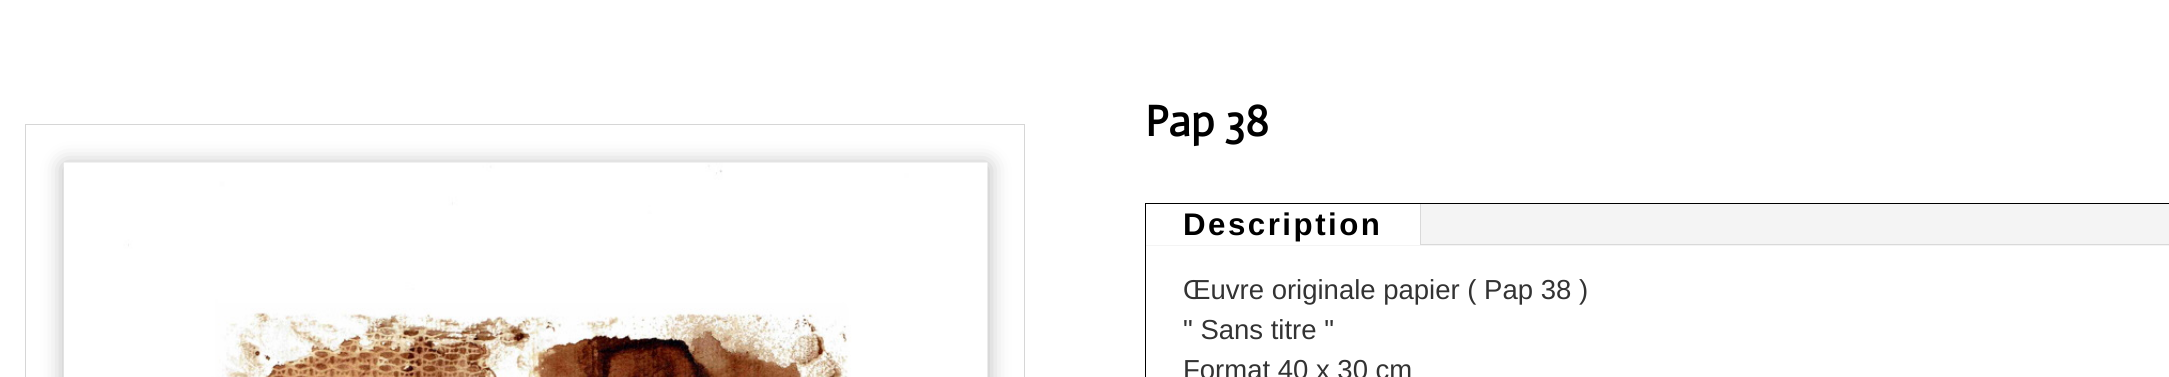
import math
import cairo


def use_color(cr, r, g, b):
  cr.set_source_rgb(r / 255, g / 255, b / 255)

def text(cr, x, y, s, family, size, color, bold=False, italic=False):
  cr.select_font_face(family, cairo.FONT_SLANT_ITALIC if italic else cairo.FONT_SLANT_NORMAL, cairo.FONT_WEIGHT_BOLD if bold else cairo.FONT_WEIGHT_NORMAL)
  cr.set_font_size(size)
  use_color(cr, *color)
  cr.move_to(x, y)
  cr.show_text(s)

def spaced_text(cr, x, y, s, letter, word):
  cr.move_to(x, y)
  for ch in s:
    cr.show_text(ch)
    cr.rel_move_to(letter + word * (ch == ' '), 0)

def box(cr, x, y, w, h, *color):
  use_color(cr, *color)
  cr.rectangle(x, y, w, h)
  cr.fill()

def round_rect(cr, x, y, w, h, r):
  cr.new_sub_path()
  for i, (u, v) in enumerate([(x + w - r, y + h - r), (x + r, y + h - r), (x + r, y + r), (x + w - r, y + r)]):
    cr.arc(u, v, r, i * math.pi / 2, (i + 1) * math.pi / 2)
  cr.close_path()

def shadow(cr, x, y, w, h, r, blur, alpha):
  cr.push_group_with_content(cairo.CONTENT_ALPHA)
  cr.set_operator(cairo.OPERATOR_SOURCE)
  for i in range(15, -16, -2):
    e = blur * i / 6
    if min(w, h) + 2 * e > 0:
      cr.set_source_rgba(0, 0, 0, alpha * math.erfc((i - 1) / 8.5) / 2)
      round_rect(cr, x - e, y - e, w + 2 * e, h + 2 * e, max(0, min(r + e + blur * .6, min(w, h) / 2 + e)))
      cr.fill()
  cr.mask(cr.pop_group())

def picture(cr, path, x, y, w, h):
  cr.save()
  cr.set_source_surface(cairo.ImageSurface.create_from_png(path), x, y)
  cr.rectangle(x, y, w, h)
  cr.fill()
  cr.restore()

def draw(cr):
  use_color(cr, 255, 255, 255)
  cr.paint()
  cr.rectangle(25.5, 124.5, 999, 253)
  use_color(cr, 214, 214, 214)
  cr.set_line_width(1)
  cr.stroke()
  use_color(cr, 0, 0, 0)
  shadow(cr, 64, 165, 924, 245, 0, 11, 0.3)
  picture(cr, "img_01.png", 63, 162, 925, 215)
  cr.rectangle(1145.5, 203.5, 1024, 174)
  use_color(cr, 0, 0, 0)
  cr.stroke()
  box(cr, 1146, 204, 1023, 42, 244, 244, 244)
  box(cr, 1146, 204, 274, 41, 255, 255, 255)
  box(cr, 1420, 204, 1, 41, 217, 217, 217)
  box(cr, 1421, 244, 748, 1, 217, 217, 217)
  text(cr, 1145, 136, "Pap 38", "Actor", 44, (0, 0, 0), bold=True)
  cr.select_font_face("Liberation Sans", cairo.FONT_SLANT_NORMAL, cairo.FONT_WEIGHT_BOLD)
  cr.set_font_size(31.25)
  spaced_text(cr, 1183, 235, "Description", 2.5, 0)
  text(cr, 1183, 299, "Œuvre originale papier ( Pap 38 )", "Liberation Sans", 27.5, (51, 51, 51))
  text(cr, 1183, 339, "\" Sans titre \"", "Liberation Sans", 27.5, (51, 51, 51))
  text(cr, 1183, 379, "Format 40 x 30 cm", "Liberation Sans", 27.5, (51, 51, 51))


surface = cairo.ImageSurface(cairo.FORMAT_RGB24, 2169, 377)
cr = cairo.Context(surface)
options = cairo.FontOptions()
options.set_hint_metrics(cairo.HINT_METRICS_OFF)
options.set_hint_style(cairo.HINT_STYLE_NONE)
cr.set_font_options(options)
cr.set_miter_limit(4)
draw(cr)
surface.write_to_png("out.png")
